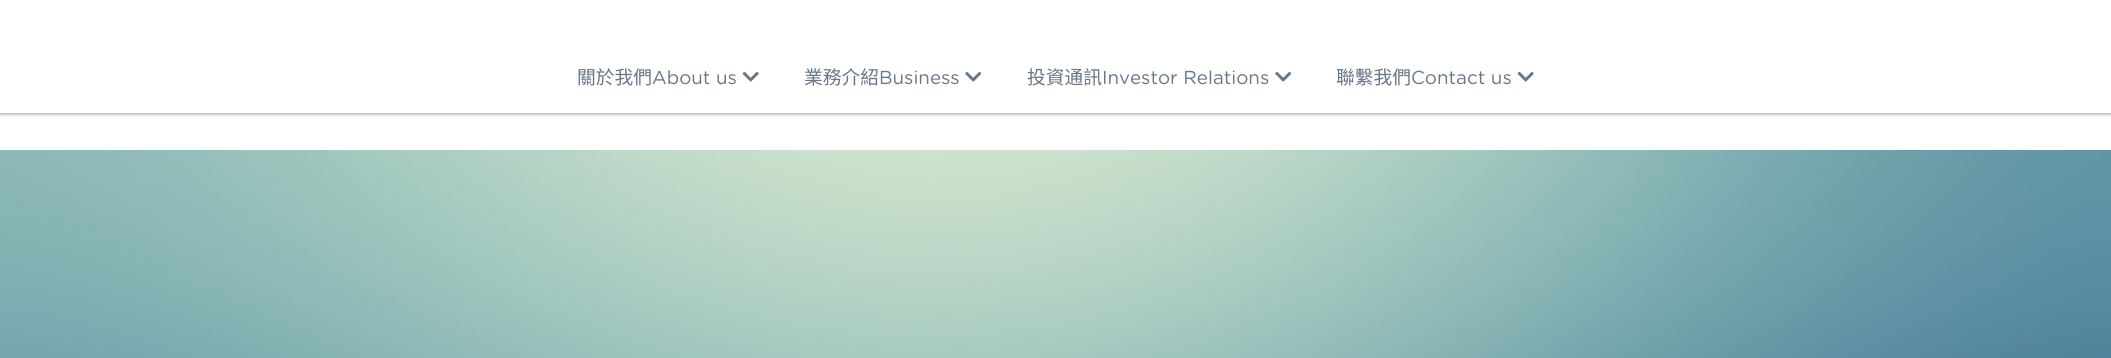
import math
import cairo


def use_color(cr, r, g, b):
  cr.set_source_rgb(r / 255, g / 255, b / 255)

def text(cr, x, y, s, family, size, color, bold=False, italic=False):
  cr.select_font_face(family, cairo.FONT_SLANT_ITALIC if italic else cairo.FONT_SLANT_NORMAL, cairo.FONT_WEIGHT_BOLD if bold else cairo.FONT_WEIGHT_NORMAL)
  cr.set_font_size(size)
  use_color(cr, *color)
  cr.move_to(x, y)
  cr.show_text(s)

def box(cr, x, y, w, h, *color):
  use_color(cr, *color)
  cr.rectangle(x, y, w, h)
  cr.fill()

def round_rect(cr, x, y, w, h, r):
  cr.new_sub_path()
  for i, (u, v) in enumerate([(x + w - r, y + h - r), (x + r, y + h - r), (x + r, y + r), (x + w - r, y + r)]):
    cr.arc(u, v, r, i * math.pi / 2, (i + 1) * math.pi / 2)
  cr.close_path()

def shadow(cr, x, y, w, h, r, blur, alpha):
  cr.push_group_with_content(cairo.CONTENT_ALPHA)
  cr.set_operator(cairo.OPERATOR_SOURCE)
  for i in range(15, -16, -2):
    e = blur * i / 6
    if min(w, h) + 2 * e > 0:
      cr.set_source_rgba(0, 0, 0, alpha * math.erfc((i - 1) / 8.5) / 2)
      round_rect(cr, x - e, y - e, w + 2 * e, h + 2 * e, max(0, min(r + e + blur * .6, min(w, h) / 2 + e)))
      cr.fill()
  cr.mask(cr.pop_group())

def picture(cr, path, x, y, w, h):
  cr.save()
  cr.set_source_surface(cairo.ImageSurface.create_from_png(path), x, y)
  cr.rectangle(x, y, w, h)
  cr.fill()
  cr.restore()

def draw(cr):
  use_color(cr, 255, 255, 255)
  cr.paint()
  use_color(cr, 0, 0, 0)
  shadow(cr, 0, 1, 2111, 113, 0, 2, 0.4)
  box(cr, 0, 0, 2111, 113, 255, 255, 255)
  picture(cr, "img_01.png", 742, 71, 17, 11)
  picture(cr, "img_02.png", 965, 71, 17, 11)
  picture(cr, "img_02.png", 1275, 71, 17, 11)
  picture(cr, "img_01.png", 1517, 71, 17, 11)
  picture(cr, "img_03.png", 0, 150, 2111, 208)
  text(cr, 577, 84, "關於我們", "Noto Sans CJK SC", 18.75, (102, 119, 136))
  text(cr, 652, 84, "About us", "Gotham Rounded", 18.75, (102, 119, 136))
  text(cr, 804, 84, "業務介紹", "Noto Sans CJK SC", 18.75, (102, 119, 136))
  text(cr, 879, 84, "Business", "Gotham Rounded", 18.75, (102, 119, 136))
  text(cr, 1027, 84, "投資通訊", "Noto Sans CJK SC", 18.75, (102, 119, 136))
  text(cr, 1102, 84, "Investor Relations", "Gotham Rounded", 18.75, (102, 119, 136))
  text(cr, 1336, 84, "聯繫我們", "Noto Sans CJK SC", 18.75, (102, 119, 136))
  text(cr, 1411, 84, "Contact us", "Gotham Rounded", 18.75, (102, 119, 136))


surface = cairo.ImageSurface(cairo.FORMAT_RGB24, 2111, 358)
cr = cairo.Context(surface)
options = cairo.FontOptions()
options.set_hint_metrics(cairo.HINT_METRICS_OFF)
options.set_hint_style(cairo.HINT_STYLE_NONE)
cr.set_font_options(options)
cr.set_miter_limit(4)
draw(cr)
surface.write_to_png("out.png")
